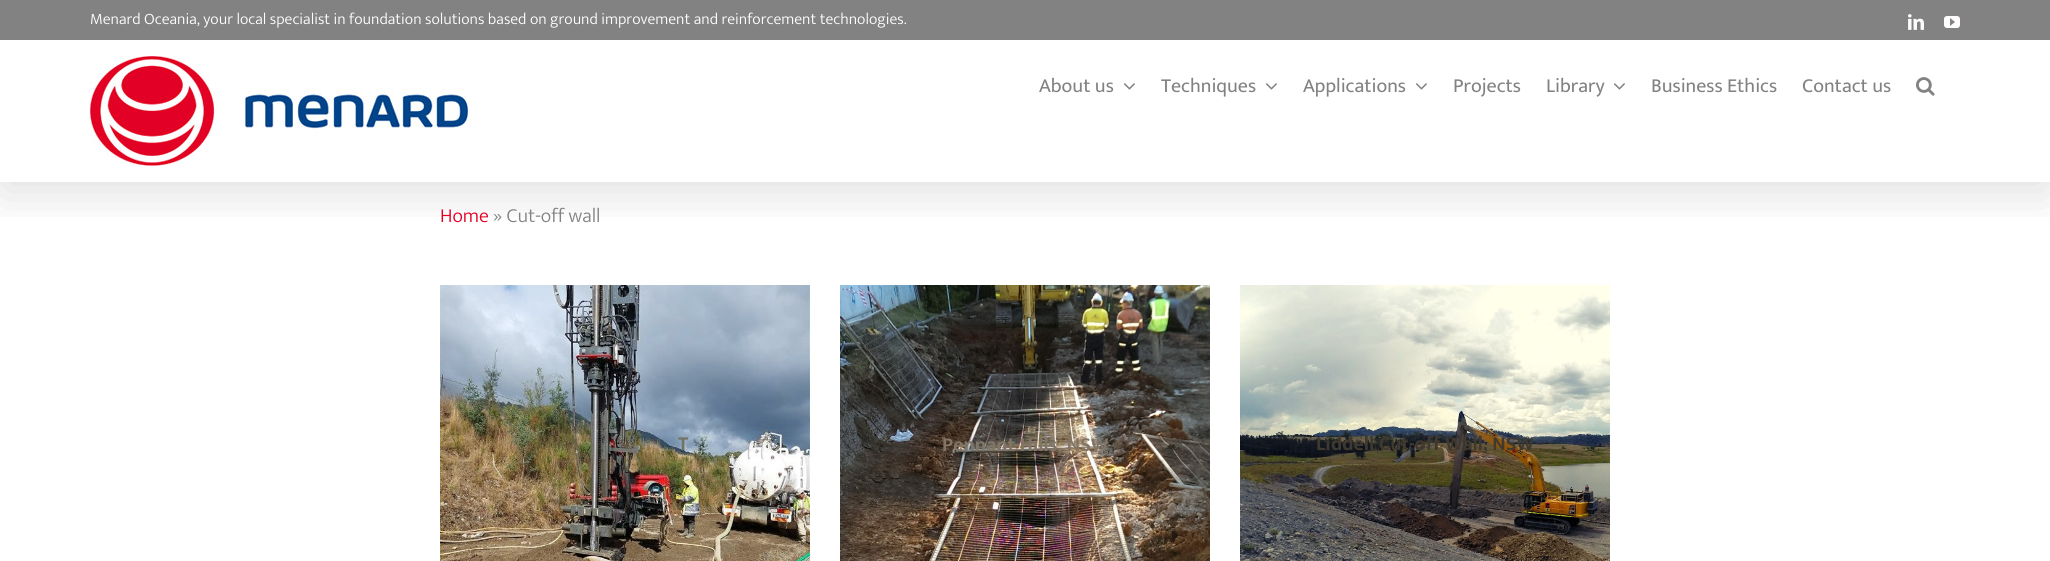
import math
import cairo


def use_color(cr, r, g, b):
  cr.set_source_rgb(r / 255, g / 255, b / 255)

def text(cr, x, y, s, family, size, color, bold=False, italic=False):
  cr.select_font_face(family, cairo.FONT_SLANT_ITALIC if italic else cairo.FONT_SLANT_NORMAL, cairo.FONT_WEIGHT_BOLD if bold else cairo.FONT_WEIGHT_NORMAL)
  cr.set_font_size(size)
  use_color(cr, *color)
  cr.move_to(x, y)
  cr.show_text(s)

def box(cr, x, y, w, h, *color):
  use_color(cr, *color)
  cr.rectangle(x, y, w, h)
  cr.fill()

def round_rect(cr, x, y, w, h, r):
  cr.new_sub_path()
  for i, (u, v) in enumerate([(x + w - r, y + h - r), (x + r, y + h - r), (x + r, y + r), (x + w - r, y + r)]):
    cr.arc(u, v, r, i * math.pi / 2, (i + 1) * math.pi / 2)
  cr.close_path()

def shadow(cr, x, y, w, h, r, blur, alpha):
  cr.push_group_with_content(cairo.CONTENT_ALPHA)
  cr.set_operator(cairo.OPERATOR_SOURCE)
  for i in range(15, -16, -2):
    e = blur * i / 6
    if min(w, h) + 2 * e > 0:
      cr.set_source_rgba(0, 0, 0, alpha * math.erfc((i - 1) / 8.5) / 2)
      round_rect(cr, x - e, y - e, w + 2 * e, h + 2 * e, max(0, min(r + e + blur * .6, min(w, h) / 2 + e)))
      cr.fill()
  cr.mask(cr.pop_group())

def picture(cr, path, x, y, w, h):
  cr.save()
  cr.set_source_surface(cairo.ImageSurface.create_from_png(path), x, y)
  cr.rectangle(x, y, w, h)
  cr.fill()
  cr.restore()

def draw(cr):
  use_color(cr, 255, 255, 255)
  cr.paint()
  cr.save()
  cr.rectangle(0, 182, 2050, 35)
  cr.clip()
  use_color(cr, 0, 0, 0)
  shadow(cr, 2, 12, 2046, 178, 0, 25, 0.14)
  cr.restore()
  box(cr, 0, 0, 2050, 40, 130, 130, 130)
  picture(cr, "img_01.png", 1908, 14, 16, 16)
  picture(cr, "img_02.png", 1944, 16, 16, 12)
  picture(cr, "img_03.png", 90, 56, 378, 110)
  picture(cr, "img_04.png", 1124, 83, 11, 7)
  picture(cr, "img_04.png", 1266, 83, 11, 7)
  picture(cr, "img_04.png", 1416, 83, 11, 7)
  picture(cr, "img_04.png", 1614, 83, 11, 7)
  picture(cr, "img_05.png", 1916, 77, 19, 19)
  picture(cr, "img_06.png", 440, 285, 370, 276)
  picture(cr, "img_07.png", 840, 285, 370, 276)
  picture(cr, "img_08.png", 1240, 285, 370, 276)
  text(cr, 90, 24, "Menard Oceania, your local specialist in foundation solutions based on ground improvement and reinforcement technologies.", "Mukta Light", 16, (255, 255, 255))
  text(cr, 1039, 92, "About us", "Mukta", 20, (130, 130, 130))
  text(cr, 1161, 92, "Techniques", "Mukta", 20, (130, 130, 130))
  text(cr, 1303, 92, "Applications", "Mukta", 20, (130, 130, 130))
  text(cr, 1453, 92, "Projects", "Mukta", 20, (130, 130, 130))
  text(cr, 1546, 92, "Library", "Mukta", 20, (130, 130, 130))
  text(cr, 1651, 92, "Business Ethics", "Mukta", 20, (130, 130, 130))
  text(cr, 1802, 92, "Contact us", "Mukta", 20, (130, 130, 130))
  text(cr, 440, 222, "Home", "Mukta Light", 20, (226, 0, 37))
  text(cr, 493, 222, "» Cut-off wall", "Mukta Light", 20, (130, 130, 130))
  text(cr, 678, 450, "T", "Mukta", 20, (115, 114, 99), bold=True)
  text(cr, 942, 451, "Pennant Hills, NSW", "Mukta", 20, (128, 117, 103), bold=True)
  text(cr, 1316, 450, "Liddell Cut-off Wall, NSW", "Mukta", 20, (63, 57, 47), bold=True)


surface = cairo.ImageSurface(cairo.FORMAT_RGB24, 2050, 561)
cr = cairo.Context(surface)
options = cairo.FontOptions()
options.set_hint_metrics(cairo.HINT_METRICS_OFF)
options.set_hint_style(cairo.HINT_STYLE_NONE)
cr.set_font_options(options)
cr.set_miter_limit(4)
draw(cr)
surface.write_to_png("out.png")
